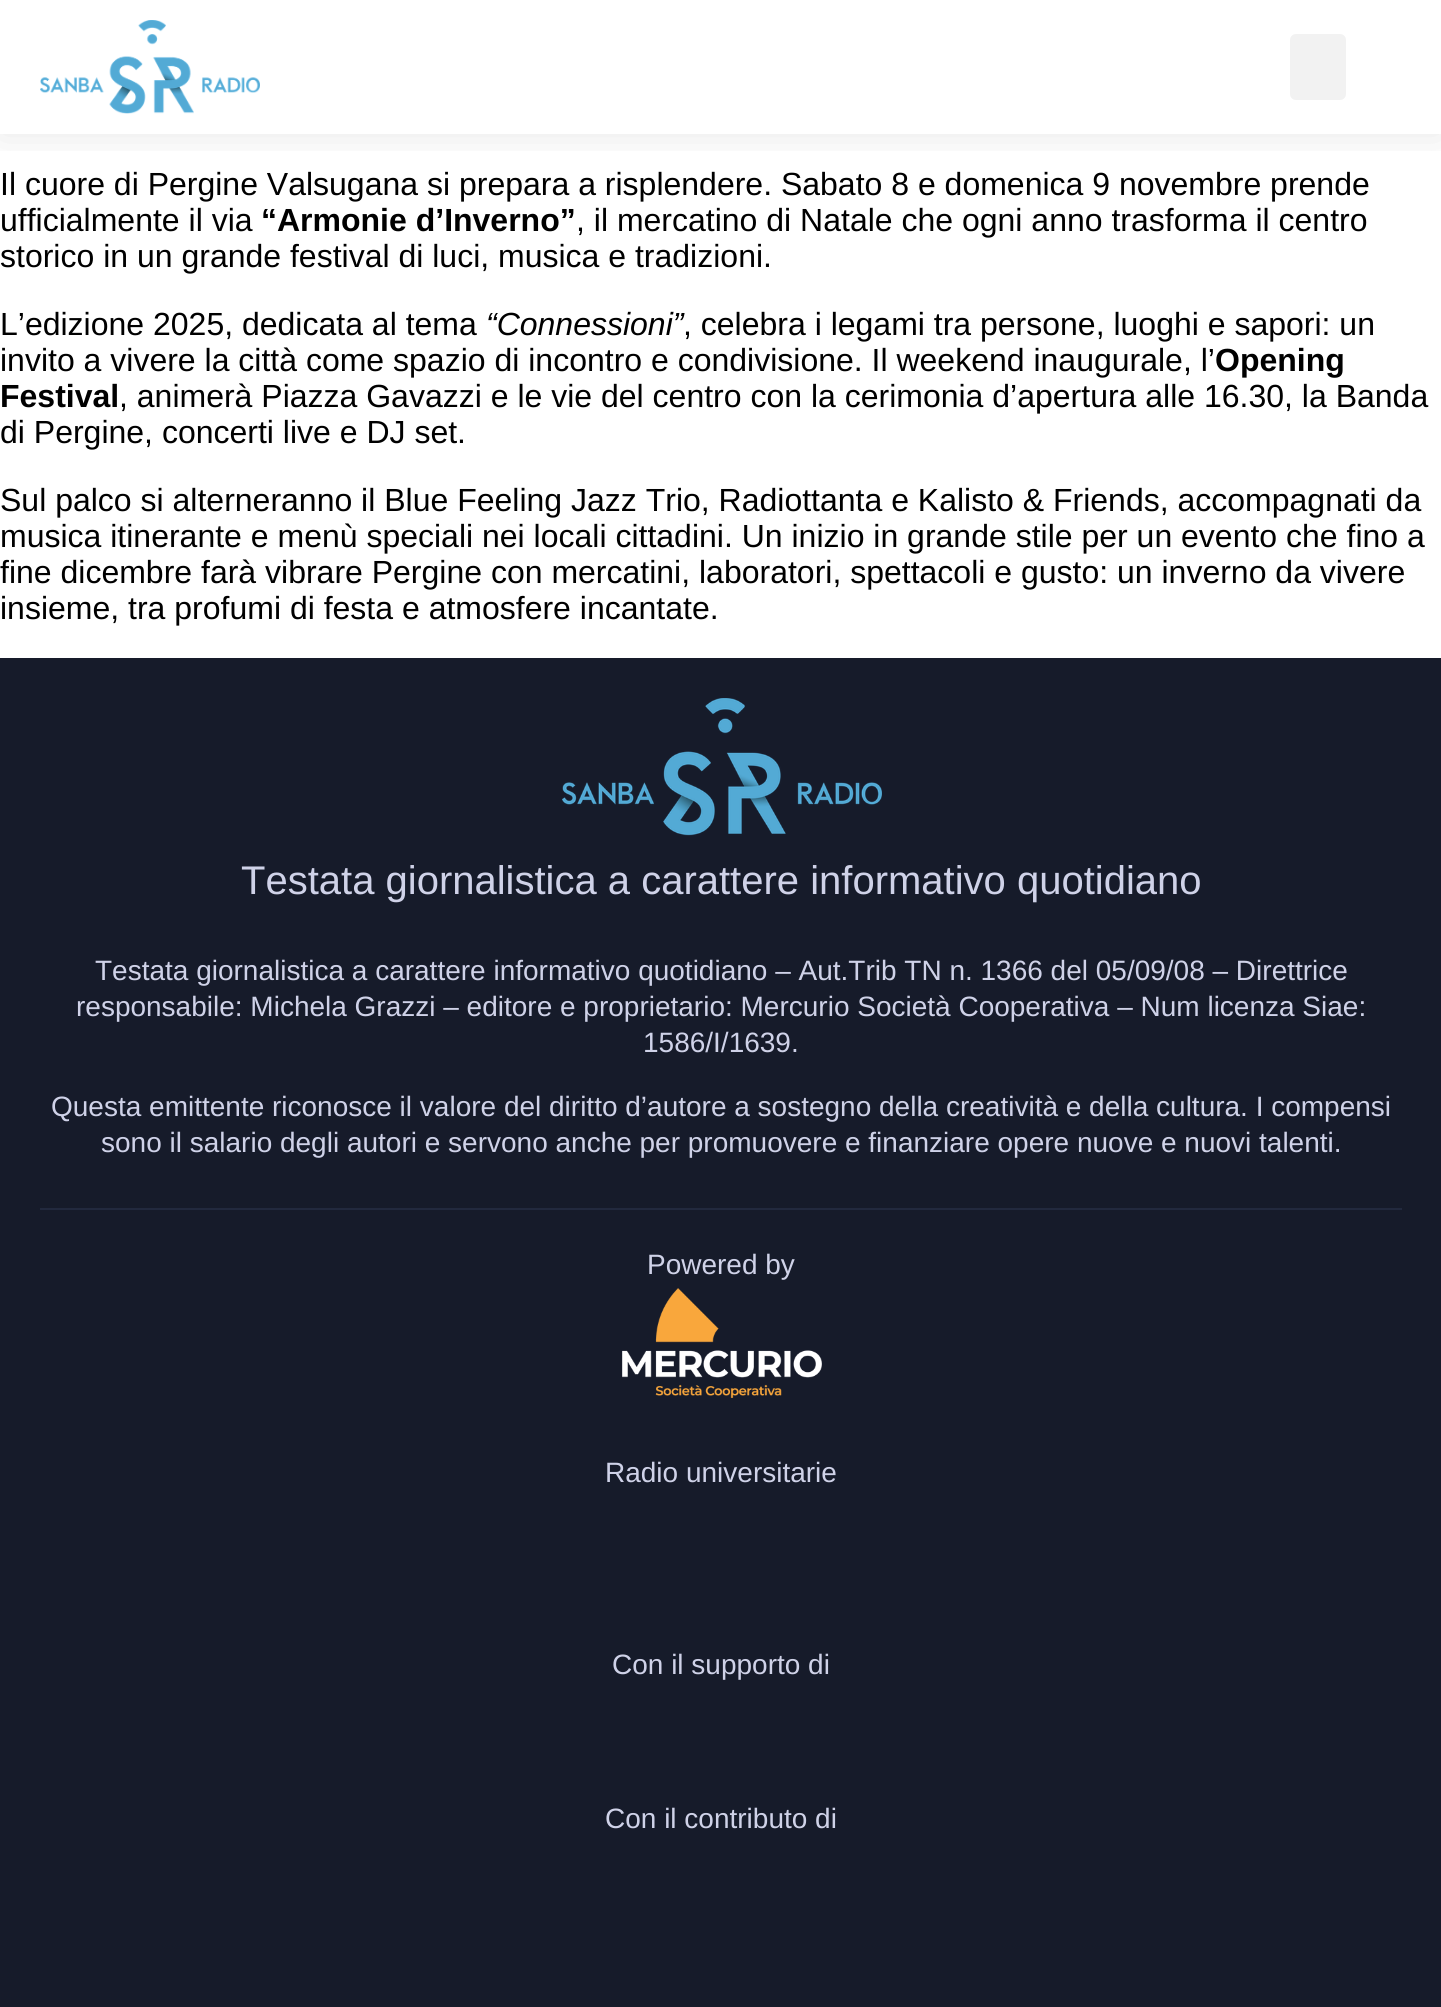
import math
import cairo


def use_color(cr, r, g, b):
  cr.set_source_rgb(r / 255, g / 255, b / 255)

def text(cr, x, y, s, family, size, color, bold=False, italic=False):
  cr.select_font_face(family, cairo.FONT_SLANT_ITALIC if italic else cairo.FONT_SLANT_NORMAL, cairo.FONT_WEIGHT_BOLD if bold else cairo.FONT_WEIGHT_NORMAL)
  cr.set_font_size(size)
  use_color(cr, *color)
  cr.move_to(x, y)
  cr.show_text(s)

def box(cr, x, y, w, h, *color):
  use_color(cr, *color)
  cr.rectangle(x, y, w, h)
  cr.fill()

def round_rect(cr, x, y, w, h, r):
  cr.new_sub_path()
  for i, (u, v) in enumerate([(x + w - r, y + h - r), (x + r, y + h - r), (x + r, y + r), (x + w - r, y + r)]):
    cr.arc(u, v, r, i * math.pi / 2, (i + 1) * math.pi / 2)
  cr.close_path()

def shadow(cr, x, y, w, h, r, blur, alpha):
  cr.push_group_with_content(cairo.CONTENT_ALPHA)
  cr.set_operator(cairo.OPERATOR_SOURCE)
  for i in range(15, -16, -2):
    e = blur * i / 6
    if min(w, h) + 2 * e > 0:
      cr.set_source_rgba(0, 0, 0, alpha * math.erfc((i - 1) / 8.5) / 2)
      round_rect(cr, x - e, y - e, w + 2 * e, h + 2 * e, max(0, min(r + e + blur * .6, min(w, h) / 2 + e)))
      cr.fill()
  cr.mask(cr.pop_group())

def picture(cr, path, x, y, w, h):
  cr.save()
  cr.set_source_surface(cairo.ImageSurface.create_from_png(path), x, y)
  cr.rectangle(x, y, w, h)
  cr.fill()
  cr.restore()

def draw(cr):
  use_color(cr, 255, 255, 255)
  cr.paint()
  cr.save()
  cr.rectangle(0, 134, 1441, 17)
  cr.clip()
  use_color(cr, 0, 0, 0)
  shadow(cr, 0, 0, 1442, 134, 0, 20, 0.1)
  cr.restore()
  picture(cr, "img_01.png", 40, 20, 220, 94)
  use_color(cr, 242, 242, 242)
  round_rect(cr, 1290, 34, 56, 66, 6)
  cr.fill()
  box(cr, 0, 658, 1441, 1349, 22, 27, 42)
  picture(cr, "img_02.png", 562, 698, 320, 138)
  box(cr, 40, 1208, 1362, 2, 34, 41, 62)
  picture(cr, "img_03.png", 622, 1288, 200, 110)
  text(cr, 0, 195, "Il cuore di Pergine Valsugana si prepara a risplendere. Sabato 8 e domenica 9 novembre prende", "Liberation Sans", 32, (0, 0, 0))
  text(cr, 0, 231, "ufficialmente il via", "Liberation Sans", 32, (0, 0, 0))
  text(cr, 261, 231, "“Armonie d’Inverno”", "Liberation Sans", 32, (0, 0, 0), bold=True)
  text(cr, 576, 231, ", il mercatino di Natale che ogni anno trasforma il centro", "Liberation Sans", 32, (0, 0, 0))
  text(cr, 0, 267, "storico in un grande festival di luci, musica e tradizioni.", "Liberation Sans", 32, (0, 0, 0))
  text(cr, 0, 335, "L’edizione 2025, dedicata al tema", "Liberation Sans", 32, (0, 0, 0))
  text(cr, 486, 335, "“Connessioni”", "Liberation Sans", 32, (0, 0, 0), italic=True)
  text(cr, 683, 335, ", celebra i legami tra persone, luoghi e sapori: un", "Liberation Sans", 32, (0, 0, 0))
  text(cr, 0, 371, "invito a vivere la città come spazio di incontro e condivisione. Il weekend inaugurale, l’", "Liberation Sans", 32, (0, 0, 0))
  text(cr, 1215, 371, "Opening", "Liberation Sans", 32, (0, 0, 0), bold=True)
  text(cr, 0, 407, "Festival", "Liberation Sans", 32, (0, 0, 0), bold=True)
  text(cr, 119, 407, ", animerà Piazza Gavazzi e le vie del centro con la cerimonia d’apertura alle 16.30, la Banda", "Liberation Sans", 32, (0, 0, 0))
  text(cr, 0, 443, "di Pergine, concerti live e DJ set.", "Liberation Sans", 32, (0, 0, 0))
  text(cr, 0, 511, "Sul palco si alterneranno il Blue Feeling Jazz Trio, Radiottanta e Kalisto & Friends, accompagnati da", "Liberation Sans", 32, (0, 0, 0))
  text(cr, 0, 547, "musica itinerante e menù speciali nei locali cittadini. Un inizio in grande stile per un evento che fino a", "Liberation Sans", 32, (0, 0, 0))
  text(cr, 0, 583, "fine dicembre farà vibrare Pergine con mercatini, laboratori, spettacoli e gusto: un inverno da vivere", "Liberation Sans", 32, (0, 0, 0))
  text(cr, 0, 619, "insieme, tra profumi di festa e atmosfere incantate.", "Liberation Sans", 32, (0, 0, 0))
  text(cr, 241, 894, "Testata giornalistica a carattere informativo quotidiano", "Liberation Sans", 40, (207, 210, 232))
  text(cr, 95, 980, "Testata giornalistica a carattere informativo quotidiano – Aut.Trib TN n. 1366 del 05/09/08 – Direttrice", "Liberation Sans", 28, (207, 210, 232))
  text(cr, 76, 1016, "responsabile: Michela Grazzi – editore e proprietario: Mercurio Società Cooperativa – Num licenza Siae:", "Liberation Sans", 28, (207, 210, 232))
  text(cr, 643, 1052, "1586/I/1639.", "Liberation Sans", 28, (207, 210, 232))
  text(cr, 51, 1116, "Questa emittente riconosce il valore del diritto d’autore a sostegno della creatività e della cultura. I compensi", "Liberation Sans", 28, (207, 210, 232))
  text(cr, 101, 1152, "sono il salario degli autori e servono anche per promuovere e finanziare opere nuove e nuovi talenti.", "Liberation Sans", 28, (207, 210, 232))
  text(cr, 647, 1274, "Powered by", "Liberation Sans", 28, (207, 210, 232))
  text(cr, 605, 1482, "Radio universitarie", "Liberation Sans", 28, (207, 210, 232))
  text(cr, 612, 1674, "Con il supporto di", "Liberation Sans", 28, (207, 210, 232))
  text(cr, 605, 1828, "Con il contributo di", "Liberation Sans", 28, (207, 210, 232))


surface = cairo.ImageSurface(cairo.FORMAT_RGB24, 1441, 2007)
cr = cairo.Context(surface)
options = cairo.FontOptions()
options.set_hint_metrics(cairo.HINT_METRICS_OFF)
options.set_hint_style(cairo.HINT_STYLE_NONE)
cr.set_font_options(options)
cr.set_miter_limit(4)
draw(cr)
surface.write_to_png("out.png")
